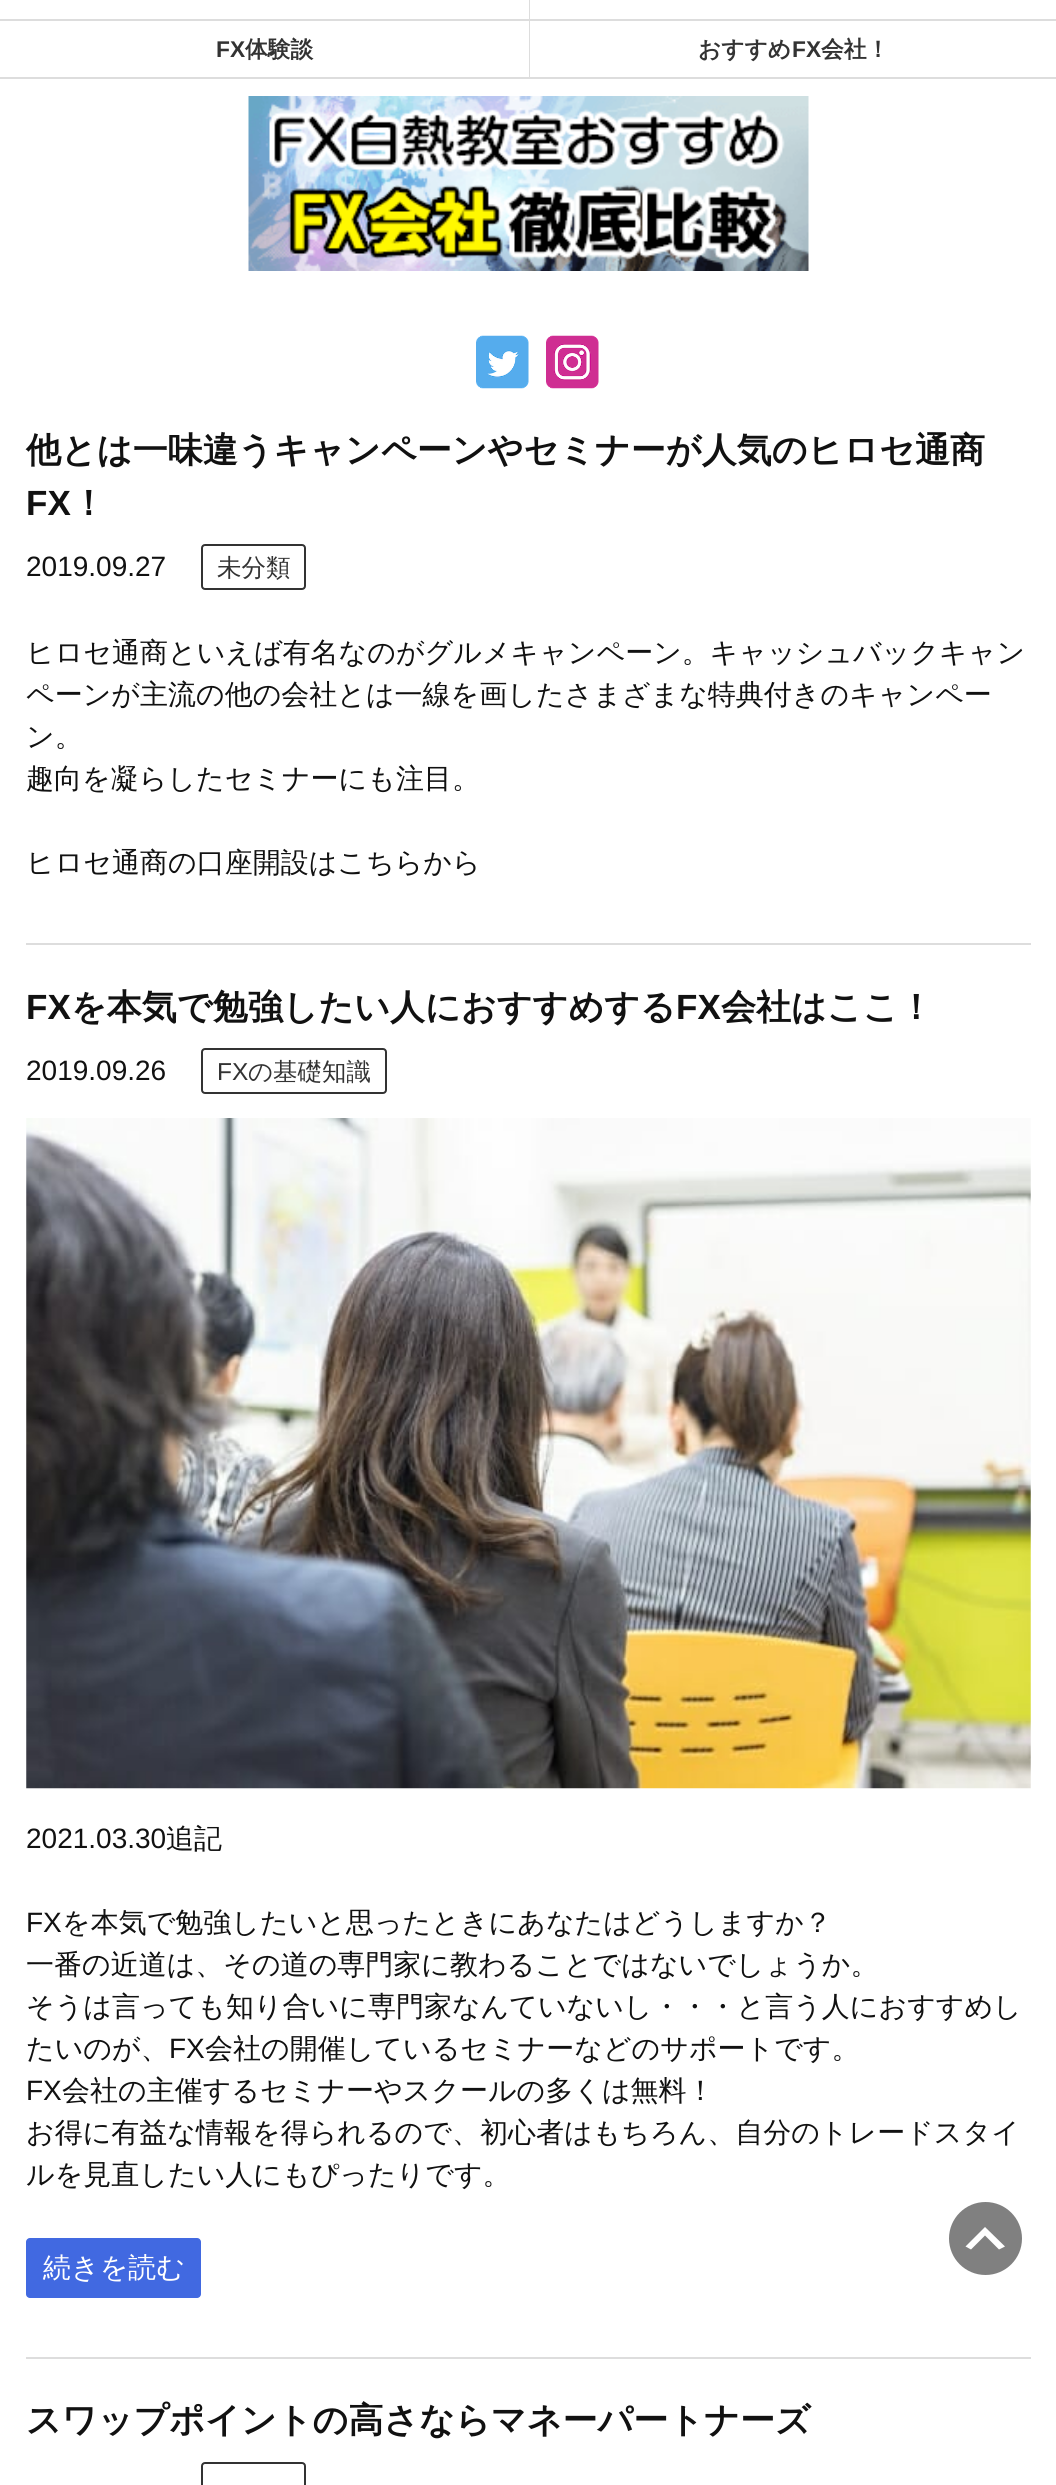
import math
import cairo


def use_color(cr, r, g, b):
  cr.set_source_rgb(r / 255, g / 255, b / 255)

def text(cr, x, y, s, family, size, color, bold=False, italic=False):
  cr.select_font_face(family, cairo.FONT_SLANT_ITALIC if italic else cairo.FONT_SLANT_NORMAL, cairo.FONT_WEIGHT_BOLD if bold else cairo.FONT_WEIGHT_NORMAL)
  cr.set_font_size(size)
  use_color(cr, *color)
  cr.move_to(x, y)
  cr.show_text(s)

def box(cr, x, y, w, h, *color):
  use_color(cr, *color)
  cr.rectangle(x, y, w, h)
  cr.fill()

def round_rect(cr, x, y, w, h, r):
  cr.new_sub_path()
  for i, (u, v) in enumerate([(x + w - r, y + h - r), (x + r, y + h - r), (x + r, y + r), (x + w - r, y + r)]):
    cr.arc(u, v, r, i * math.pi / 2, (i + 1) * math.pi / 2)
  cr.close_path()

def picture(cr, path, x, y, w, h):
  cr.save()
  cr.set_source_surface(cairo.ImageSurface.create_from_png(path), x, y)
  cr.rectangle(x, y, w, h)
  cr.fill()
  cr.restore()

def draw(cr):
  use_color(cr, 255, 255, 255)
  cr.paint()
  box(cr, 0, 19, 1056, 2, 221, 221, 221)
  box(cr, 529, 0, 2, 21, 221, 221, 221)
  box(cr, 530, 0, 1, 19, 255, 255, 255)
  box(cr, 0, 77, 1056, 2, 221, 221, 221)
  box(cr, 529, 21, 2, 58, 221, 221, 221)
  box(cr, 530, 21, 1, 56, 255, 255, 255)
  picture(cr, "img_01.png", 248, 96, 561, 175)
  picture(cr, "img_02.png", 476, 335, 53, 54)
  picture(cr, "img_03.png", 546, 335, 53, 54)
  box(cr, 26, 943, 1005, 2, 221, 221, 221)
  round_rect(cr, 202, 545, 103, 44, 3)
  use_color(cr, 51, 51, 51)
  cr.stroke()
  box(cr, 26, 2357, 1005, 2, 221, 221, 221)
  round_rect(cr, 202, 1049, 184, 44, 3)
  use_color(cr, 51, 51, 51)
  cr.stroke()
  picture(cr, "img_04.png", 26, 1118, 1005, 671)
  use_color(cr, 65, 105, 225)
  round_rect(cr, 26, 2238, 175, 60, 4)
  cr.fill()
  round_rect(cr, 202, 2463, 103, 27, 3)
  use_color(cr, 51, 51, 51)
  cr.stroke()
  use_color(cr, 128, 128, 128)
  cr.arc(985.5, 2238.5, 36.5, 0, 2 * math.pi)
  cr.fill()
  use_color(cr, 255, 255, 255)
  cr.new_path()
  cr.move_to(999, 2249.5)
  cr.line_to(985, 2235.5)
  cr.line_to(971, 2249.5)
  cr.line_to(965.5, 2246.5)
  cr.line_to(985, 2227)
  cr.line_to(1005, 2246.5)
  cr.close_path()
  cr.fill()
  text(cr, 216, 57, "FX", "Liberation Sans", 22.75, (51, 51, 51), bold=True)
  text(cr, 245, 57, "体験談", "WenQuanYi Zen Hei", 22.75, (51, 51, 51), bold=True)
  text(cr, 698, 57, "おすすめ", "WenQuanYi Zen Hei", 22.75, (51, 51, 51), bold=True)
  text(cr, 792, 57, "FX", "Liberation Sans", 22.75, (51, 51, 51), bold=True)
  text(cr, 821, 57, "会社！", "WenQuanYi Zen Hei", 22.75, (51, 51, 51), bold=True)
  text(cr, 26, 462, "他とは一味違うキャンペーンやセミナーが人気のヒロセ通商", "WenQuanYi Zen Hei", 35, (17, 17, 17), bold=True)
  text(cr, 26, 515, "FX", "Liberation Sans", 35, (17, 17, 17), bold=True)
  text(cr, 71, 515, "！", "WenQuanYi Zen Hei", 35, (17, 17, 17), bold=True)
  text(cr, 26, 576, "2019.09.27", "Liberation Sans", 28, (17, 17, 17))
  text(cr, 217, 576, "未分類", "WenQuanYi Zen Hei Medium", 24.5, (51, 51, 51))
  text(cr, 26, 662, "ヒロセ通商といえば有名なのがグルメキャンペーン。キャッシュバックキャン", "WenQuanYi Zen Hei Medium", 28, (17, 17, 17))
  text(cr, 26, 704, "ペーンが主流の他の会社とは一線を画したさまざまな特典付きのキャンペー", "WenQuanYi Zen Hei Medium", 28, (17, 17, 17))
  text(cr, 26, 746, "ン。", "WenQuanYi Zen Hei Medium", 28, (17, 17, 17))
  text(cr, 26, 788, "趣向を凝らしたセミナーにも注目。", "WenQuanYi Zen Hei Medium", 28, (17, 17, 17))
  text(cr, 26, 872, "ヒロセ通商の口座開設はこちらから", "WenQuanYi Zen Hei Medium", 28, (17, 17, 17))
  text(cr, 26, 1019, "FX", "Liberation Sans", 35, (17, 17, 17), bold=True)
  text(cr, 71, 1019, "を本気で勉強したい人におすすめする", "WenQuanYi Zen Hei", 35, (17, 17, 17), bold=True)
  text(cr, 676, 1019, "FX", "Liberation Sans", 35, (17, 17, 17), bold=True)
  text(cr, 721, 1019, "会社はここ！", "WenQuanYi Zen Hei", 35, (17, 17, 17), bold=True)
  text(cr, 26, 1080, "2019.09.26", "Liberation Sans", 28, (17, 17, 17))
  text(cr, 217, 1080, "FX", "Liberation Sans", 24.5, (51, 51, 51))
  text(cr, 248, 1080, "の基礎知識", "WenQuanYi Zen Hei Medium", 24.5, (51, 51, 51))
  text(cr, 26, 1848, "2021.03.30", "Liberation Sans", 28, (17, 17, 17))
  text(cr, 166, 1848, "追記", "WenQuanYi Zen Hei Medium", 28, (17, 17, 17))
  text(cr, 26, 1932, "FX", "Liberation Sans", 28, (17, 17, 17))
  text(cr, 62, 1932, "を本気で勉強したいと思ったときにあなたはどうしますか？", "WenQuanYi Zen Hei Medium", 28, (17, 17, 17))
  text(cr, 26, 1974, "一番の近道は、その道の専門家に教わることではないでしょうか。", "WenQuanYi Zen Hei Medium", 28, (17, 17, 17))
  text(cr, 26, 2016, "そうは言っても知り合いに専門家なんていないし・・・と言う人におすすめし", "WenQuanYi Zen Hei Medium", 28, (17, 17, 17))
  text(cr, 26, 2058, "たいのが、", "WenQuanYi Zen Hei Medium", 28, (17, 17, 17))
  text(cr, 169, 2058, "FX", "Liberation Sans", 28, (17, 17, 17))
  text(cr, 205, 2058, "会社の開催しているセミナーなどのサポートです。", "WenQuanYi Zen Hei Medium", 28, (17, 17, 17))
  text(cr, 26, 2100, "FX", "Liberation Sans", 28, (17, 17, 17))
  text(cr, 62, 2100, "会社の主催するセミナーやスクールの多くは無料！", "WenQuanYi Zen Hei Medium", 28, (17, 17, 17))
  text(cr, 26, 2142, "お得に有益な情報を得られるので、初心者はもちろん、自分のトレードスタイ", "WenQuanYi Zen Hei Medium", 28, (17, 17, 17))
  text(cr, 26, 2184, "ルを見直したい人にもぴったりです。", "WenQuanYi Zen Hei Medium", 28, (17, 17, 17))
  text(cr, 43, 2277, "続きを読む", "WenQuanYi Zen Hei Medium", 28, (255, 255, 255))
  text(cr, 26, 2432, "スワップポイントの高さならマネーパートナーズ", "WenQuanYi Zen Hei", 35, (17, 17, 17), bold=True)


surface = cairo.ImageSurface(cairo.FORMAT_RGB24, 1056, 2485)
cr = cairo.Context(surface)
options = cairo.FontOptions()
options.set_hint_metrics(cairo.HINT_METRICS_OFF)
options.set_hint_style(cairo.HINT_STYLE_NONE)
cr.set_font_options(options)
cr.set_miter_limit(4)
draw(cr)
surface.write_to_png("out.png")
